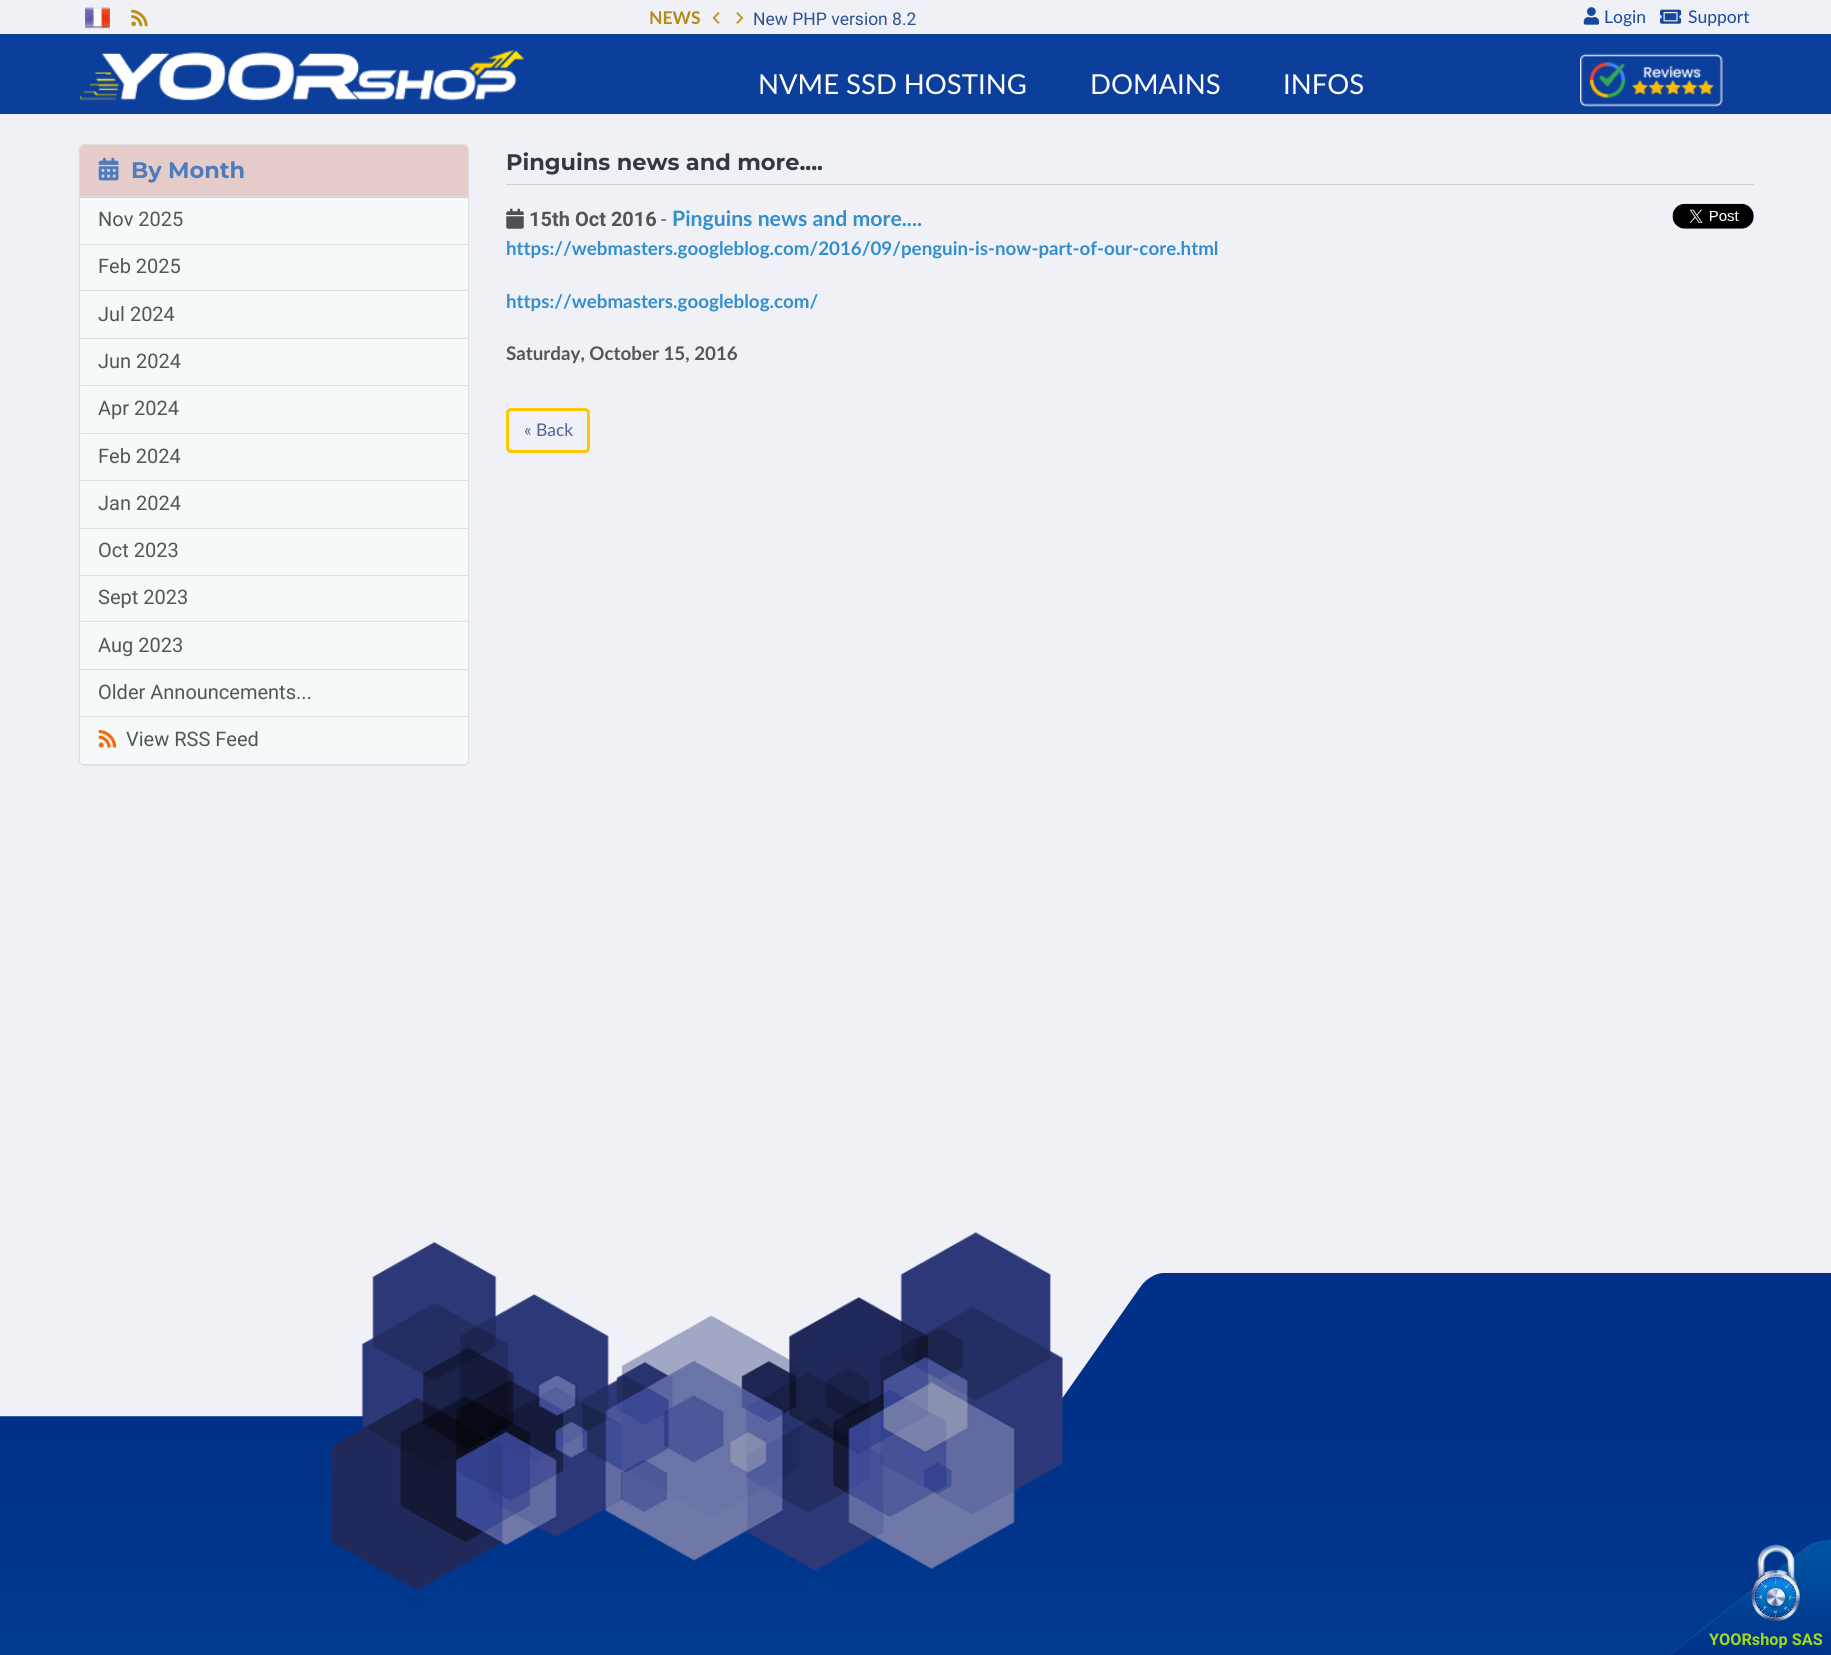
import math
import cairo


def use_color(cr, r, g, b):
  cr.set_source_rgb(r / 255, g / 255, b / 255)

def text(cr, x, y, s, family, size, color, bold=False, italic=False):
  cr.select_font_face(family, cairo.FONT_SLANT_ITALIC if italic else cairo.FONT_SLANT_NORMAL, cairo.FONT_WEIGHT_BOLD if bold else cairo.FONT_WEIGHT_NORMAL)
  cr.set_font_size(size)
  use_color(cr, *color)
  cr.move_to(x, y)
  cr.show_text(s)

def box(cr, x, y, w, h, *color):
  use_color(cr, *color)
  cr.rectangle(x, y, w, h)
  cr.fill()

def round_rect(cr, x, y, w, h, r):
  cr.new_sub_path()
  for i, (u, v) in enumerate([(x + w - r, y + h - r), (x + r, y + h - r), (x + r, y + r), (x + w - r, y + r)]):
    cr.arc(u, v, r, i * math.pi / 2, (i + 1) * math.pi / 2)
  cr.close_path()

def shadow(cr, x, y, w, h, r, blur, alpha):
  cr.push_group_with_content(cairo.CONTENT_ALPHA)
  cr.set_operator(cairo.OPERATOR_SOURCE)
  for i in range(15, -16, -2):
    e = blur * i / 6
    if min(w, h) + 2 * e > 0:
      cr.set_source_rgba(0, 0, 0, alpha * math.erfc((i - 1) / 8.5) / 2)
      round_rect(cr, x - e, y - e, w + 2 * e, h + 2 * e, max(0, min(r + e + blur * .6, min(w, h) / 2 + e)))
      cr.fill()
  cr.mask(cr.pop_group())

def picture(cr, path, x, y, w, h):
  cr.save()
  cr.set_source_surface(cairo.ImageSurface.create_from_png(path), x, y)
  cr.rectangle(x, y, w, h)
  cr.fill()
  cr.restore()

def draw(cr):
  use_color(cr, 240, 241, 246)
  cr.paint()
  picture(cr, "img_01.png", 85, 7, 25, 22)
  picture(cr, "img_02.png", 131, 9, 17, 18)
  picture(cr, "img_03.png", 712, 12, 8, 12)
  picture(cr, "img_04.png", 736, 12, 8, 12)
  picture(cr, "img_05.png", 1583, 7, 17, 18)
  picture(cr, "img_06.png", 1660, 9, 22, 15)
  box(cr, 0, 34, 1831, 80, 12, 63, 156)
  picture(cr, "img_07.png", 79, 50, 445, 51)
  picture(cr, "img_08.png", 1580, 53, 143, 54)
  use_color(cr, 0, 0, 0)
  shadow(cr, 79, 145, 390, 621, 5, 0.5, 0.05)
  use_color(cr, 255, 255, 255)
  round_rect(cr, 79.5, 144.5, 389, 620, 4.5)
  cr.fill_preserve()
  use_color(cr, 221, 221, 221)
  cr.set_line_width(1)
  cr.stroke()
  use_color(cr, 230, 203, 203)
  cr.new_path()
  cr.move_to(84, 145)
  cr.line_to(464, 145)
  cr.curve_to(466, 145, 468, 147, 468, 149)
  cr.line_to(468, 198)
  cr.line_to(80, 198)
  cr.line_to(80, 149)
  cr.curve_to(80, 147, 82, 145, 84, 145)
  cr.close_path()
  cr.fill()
  box(cr, 80, 196, 388, 1, 221, 221, 221)
  picture(cr, "img_09.png", 98, 157, 21, 24)
  box(cr, 80, 198, 388, 46, 246, 249, 249)
  box(cr, 80, 244, 388, 1, 221, 221, 221)
  box(cr, 80, 245, 388, 45, 246, 249, 249)
  box(cr, 80, 290, 388, 1, 221, 221, 221)
  box(cr, 80, 291, 388, 47, 246, 249, 249)
  box(cr, 80, 338, 388, 1, 221, 221, 221)
  box(cr, 80, 339, 388, 46, 246, 249, 249)
  box(cr, 80, 385, 388, 1, 221, 221, 221)
  box(cr, 80, 386, 388, 47, 246, 249, 249)
  box(cr, 80, 433, 388, 1, 221, 221, 221)
  box(cr, 80, 434, 388, 46, 246, 249, 249)
  box(cr, 80, 480, 388, 1, 221, 221, 221)
  box(cr, 80, 481, 388, 47, 246, 249, 249)
  box(cr, 80, 528, 388, 1, 221, 221, 221)
  box(cr, 80, 529, 388, 46, 246, 249, 249)
  box(cr, 80, 575, 388, 1, 221, 221, 221)
  box(cr, 80, 576, 388, 45, 246, 249, 249)
  box(cr, 80, 621, 388, 1, 221, 221, 221)
  box(cr, 80, 623, 388, 46, 246, 249, 249)
  box(cr, 80, 669, 388, 1, 221, 221, 221)
  box(cr, 80, 670, 388, 46, 246, 249, 249)
  cr.new_path()
  cr.move_to(80, 716)
  cr.line_to(468, 716)
  cr.line_to(468, 760)
  cr.curve_to(468, 762, 466, 764, 464, 764)
  cr.line_to(84, 764)
  cr.curve_to(82, 764, 80, 762, 80, 760)
  cr.close_path()
  cr.fill()
  box(cr, 80, 716, 388, 1, 221, 221, 221)
  picture(cr, "img_10.png", 98, 730, 19, 18)
  box(cr, 506, 184, 1248, 1, 204, 204, 204)
  picture(cr, "img_11.png", 506, 208, 18, 21)
  picture(cr, "img_12.png", 1672, 203, 82, 26)
  round_rect(cr, 507.5, 409.5, 81, 42, 3.5)
  use_color(cr, 255, 198, 0)
  cr.set_line_width(3)
  cr.stroke()
  picture(cr, "img_13.png", 0, 1416, 1831, 239)
  use_color(cr, 0, 48, 135)
  cr.new_path()
  cr.move_to(1163, 1273)
  cr.line_to(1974, 1273)
  cr.line_to(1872, 1420)
  cr.line_to(1047, 1420)
  cr.line_to(1141, 1286)
  cr.curve_to(1146, 1279, 1156, 1273, 1163, 1273)
  cr.close_path()
  cr.fill()
  picture(cr, "img_14.png", 332, 1232, 731, 358)
  picture(cr, "img_15.png", 1669, 1539, 162, 116)
  picture(cr, "img_16.png", 1670, 1539, 161, 116)
  picture(cr, "img_17.png", 1751, 1544, 49, 78)
  text(cr, 649, 24, "NEWS", "Lato", 17.5, (179, 139, 25), bold=True)
  text(cr, 753, 25, "New PHP version 8.2", "Roboto", 17.5, (44, 82, 151))
  text(cr, 1604, 23, "Login", "Lato", 17.5, (23, 72, 160))
  text(cr, 1688, 23, "Support", "Lato", 17.5, (23, 72, 160))
  text(cr, 758, 94, "NVME SSD HOSTING", "Lato", 27.5, (255, 255, 255))
  text(cr, 1090, 94, "DOMAINS", "Lato", 27.5, (255, 255, 255))
  text(cr, 1283, 94, "INFOS", "Lato", 27.5, (255, 255, 255))
  text(cr, 131, 178, "By Month", "Montserrat", 22.5, (76, 124, 188), bold=True)
  text(cr, 98, 226, "Nov 2025", "Roboto", 20, (85, 85, 85))
  text(cr, 98, 273, "Feb 2025", "Roboto", 20, (85, 85, 85))
  text(cr, 98, 321, "Jul 2024", "Roboto", 20, (85, 85, 85))
  text(cr, 98, 368, "Jun 2024", "Roboto", 20, (85, 85, 85))
  text(cr, 98, 415, "Apr 2024", "Roboto", 20, (85, 85, 85))
  text(cr, 98, 463, "Feb 2024", "Roboto", 20, (85, 85, 85))
  text(cr, 98, 510, "Jan 2024", "Roboto", 20, (85, 85, 85))
  text(cr, 98, 557, "Oct 2023", "Roboto", 20, (85, 85, 85))
  text(cr, 98, 604, "Sept 2023", "Roboto", 20, (85, 85, 85))
  text(cr, 98, 652, "Aug 2023", "Roboto", 20, (85, 85, 85))
  text(cr, 98, 699, "Older Announcements...", "Roboto", 20, (85, 85, 85))
  text(cr, 126, 746, "View RSS Feed", "Roboto", 20, (85, 85, 85))
  text(cr, 506, 170, "Pinguins news and more....", "Montserrat", 22.5, (51, 56, 65), bold=True)
  text(cr, 529, 226, "15th Oct 2016", "Roboto", 20, (85, 85, 85), bold=True)
  text(cr, 661, 226, "-", "Roboto", 20, (85, 85, 85))
  text(cr, 672, 226, "Pinguins news and more....", "Lato", 21.25, (51, 142, 206), bold=True)
  text(cr, 506, 255, "https://webmasters.googleblog.com/2016/09/penguin-is-now-part-of-our-core.html", "Lato", 18.75, (51, 142, 206), bold=True)
  text(cr, 506, 308, "https://webmasters.googleblog.com/", "Lato", 18.75, (51, 142, 206), bold=True)
  text(cr, 506, 360, "Saturday, October 15, 2016", "Lato", 18.75, (85, 85, 85), bold=True)
  text(cr, 524, 436, "« Back", "Lato", 17.5, (81, 99, 149))
  text(cr, 1709, 1645, "YOORshop SAS", "Roboto", 16.25, (162, 216, 32), bold=True)


surface = cairo.ImageSurface(cairo.FORMAT_RGB24, 1831, 1655)
cr = cairo.Context(surface)
options = cairo.FontOptions()
options.set_hint_metrics(cairo.HINT_METRICS_OFF)
options.set_hint_style(cairo.HINT_STYLE_NONE)
cr.set_font_options(options)
cr.set_miter_limit(4)
draw(cr)
surface.write_to_png("out.png")
